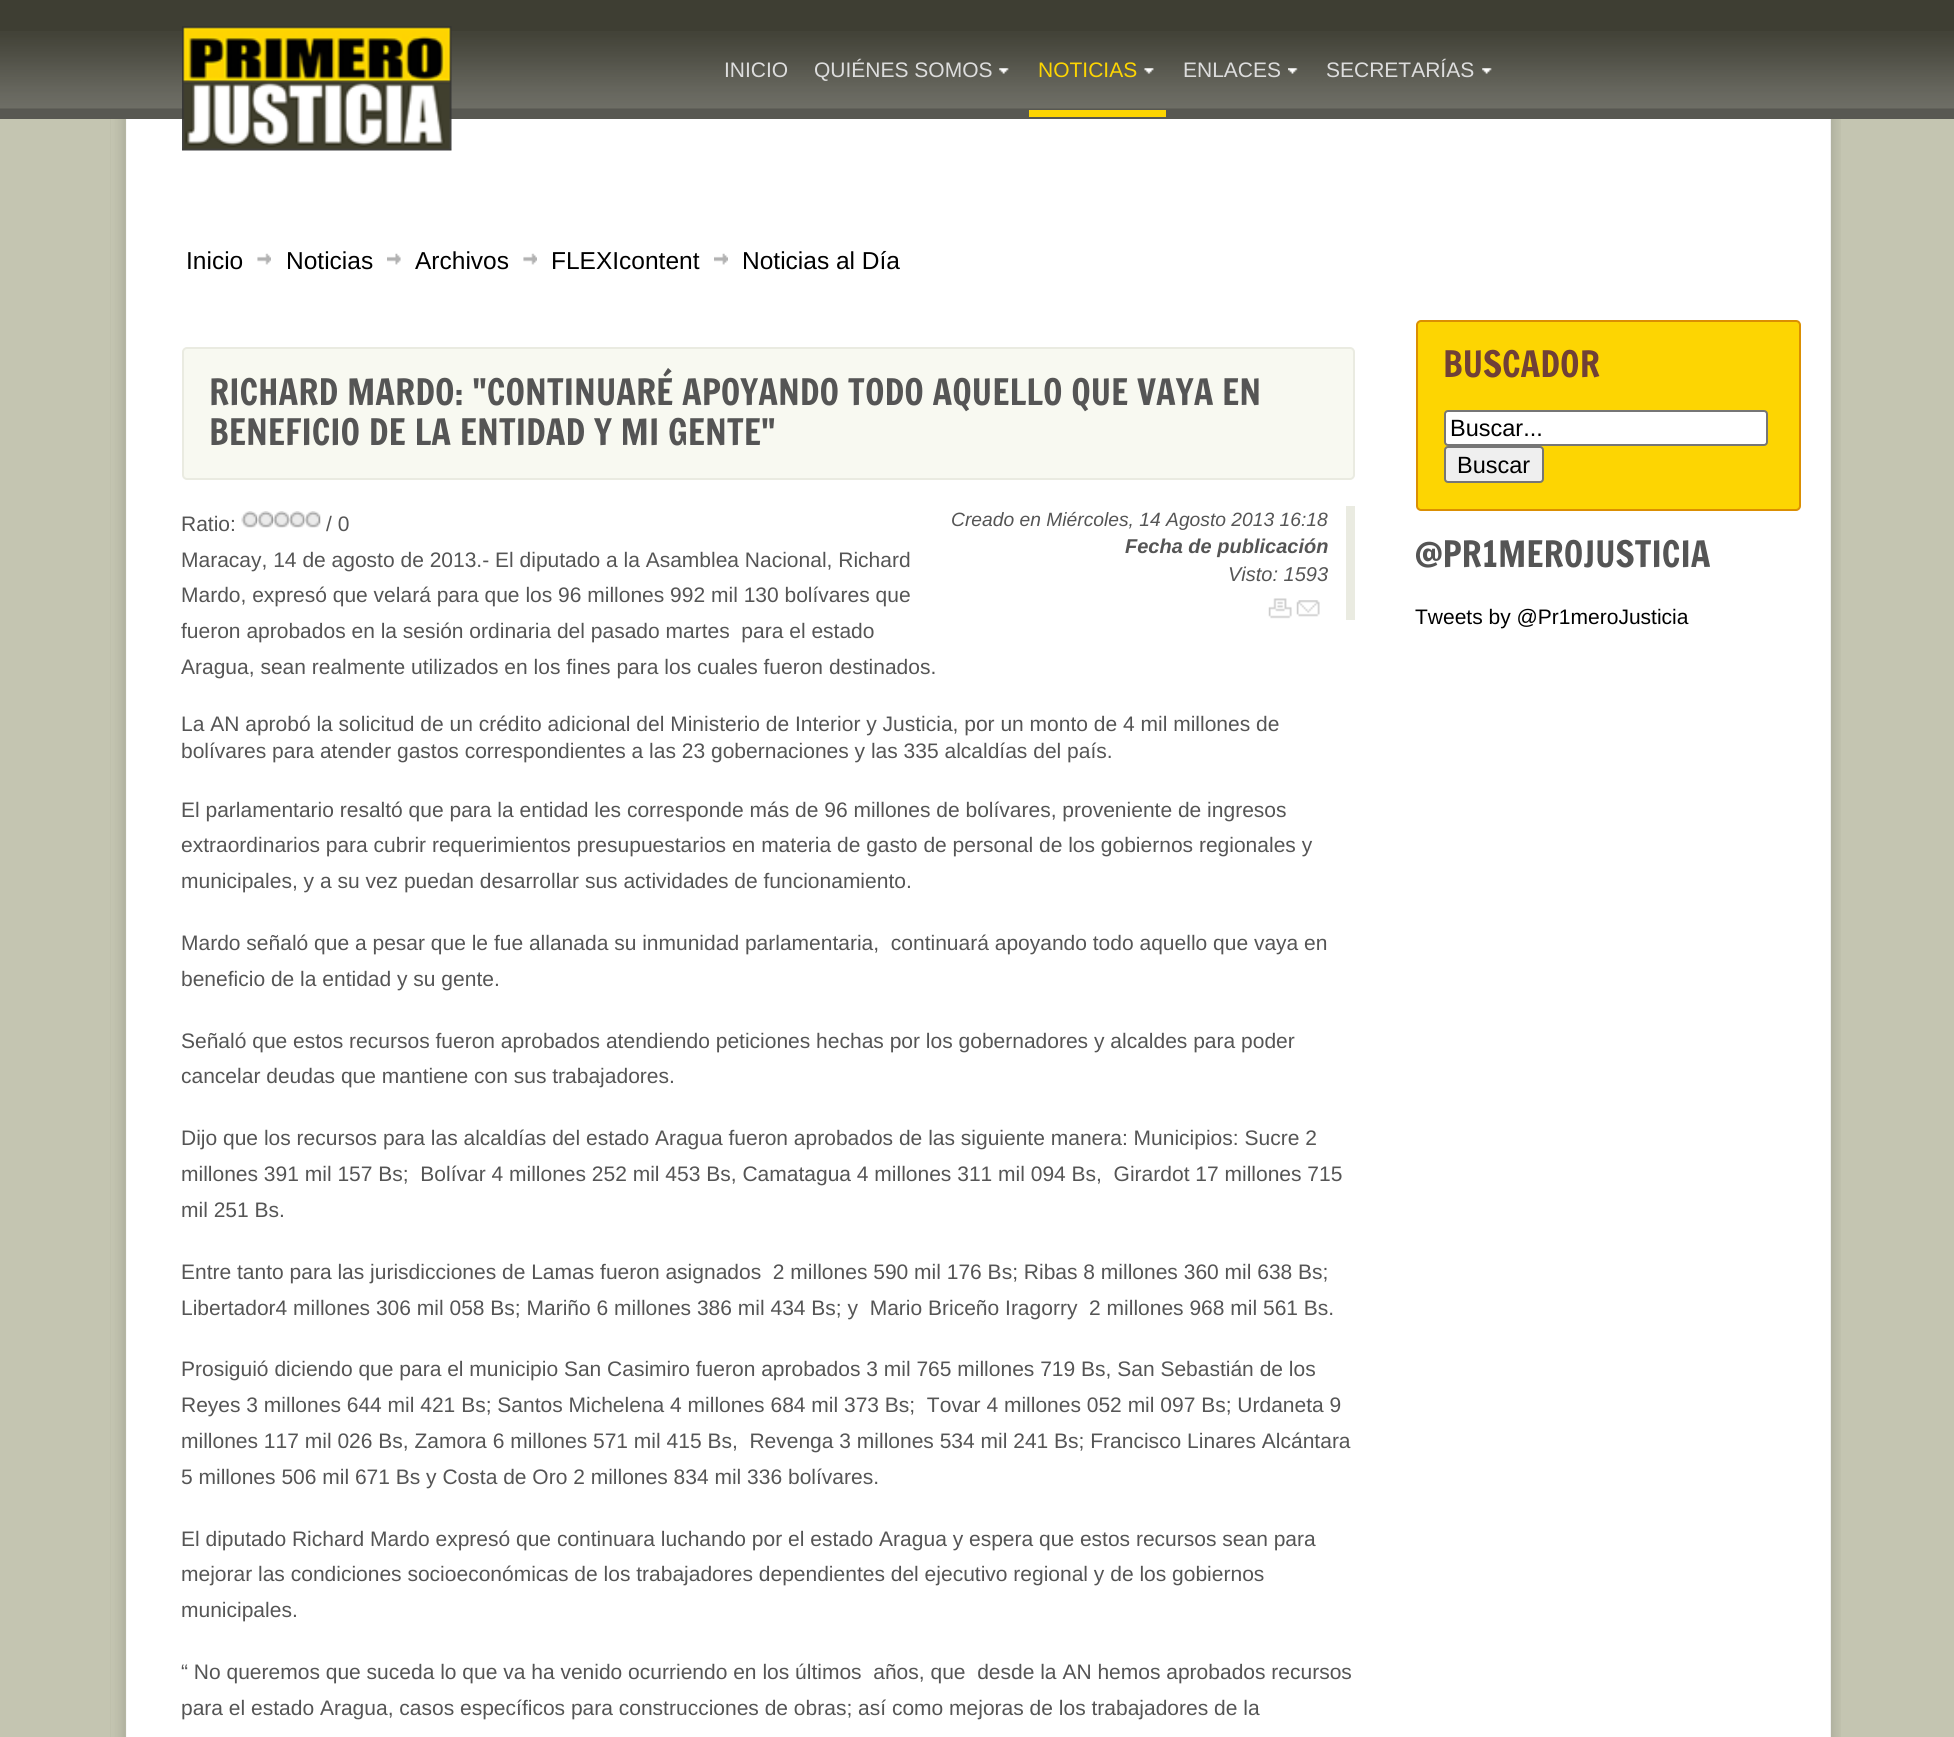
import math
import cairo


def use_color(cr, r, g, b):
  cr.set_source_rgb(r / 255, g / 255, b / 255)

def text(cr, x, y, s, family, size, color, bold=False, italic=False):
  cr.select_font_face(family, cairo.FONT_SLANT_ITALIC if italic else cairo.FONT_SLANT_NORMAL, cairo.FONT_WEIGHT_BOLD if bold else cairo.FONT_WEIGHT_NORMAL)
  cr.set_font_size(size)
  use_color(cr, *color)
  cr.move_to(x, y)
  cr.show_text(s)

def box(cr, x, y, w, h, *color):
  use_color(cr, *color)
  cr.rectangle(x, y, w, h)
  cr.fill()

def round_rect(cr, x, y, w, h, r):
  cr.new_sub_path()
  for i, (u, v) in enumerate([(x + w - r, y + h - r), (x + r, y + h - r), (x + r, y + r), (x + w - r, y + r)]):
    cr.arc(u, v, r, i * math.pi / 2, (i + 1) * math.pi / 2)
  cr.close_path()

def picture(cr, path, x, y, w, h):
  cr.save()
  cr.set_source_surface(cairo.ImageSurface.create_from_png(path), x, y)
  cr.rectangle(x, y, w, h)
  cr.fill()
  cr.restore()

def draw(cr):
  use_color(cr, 196, 197, 177)
  cr.paint()
  box(cr, 0, 0, 1954, 119, 62, 62, 51)
  picture(cr, "img_01.png", 0, 31, 1954, 88)
  box(cr, 126, 119, 1705, 1618, 255, 255, 255)
  picture(cr, "img_02.png", 182, 26, 270, 125)
  picture(cr, "img_03.png", 999, 68, 10, 6)
  box(cr, 1029, 110, 137, 7, 253, 213, 2)
  picture(cr, "img_04.png", 1144, 68, 10, 6)
  picture(cr, "img_05.png", 1288, 68, 10, 6)
  picture(cr, "img_06.png", 1482, 68, 10, 6)
  picture(cr, "img_07.png", 110, 119, 17, 1618)
  picture(cr, "img_08.png", 1830, 119, 11, 1618)
  picture(cr, "img_09.png", 257, 253, 14, 12)
  picture(cr, "img_10.png", 387, 253, 14, 12)
  picture(cr, "img_09.png", 523, 253, 14, 12)
  picture(cr, "img_11.png", 714, 253, 14, 12)
  use_color(cr, 248, 249, 241)
  round_rect(cr, 183, 348, 1171, 131, 4)
  cr.fill_preserve()
  use_color(cr, 234, 235, 225)
  cr.stroke()
  picture(cr, "img_12.png", 241, 511, 17, 17)
  picture(cr, "img_13.png", 257, 511, 16, 17)
  picture(cr, "img_14.png", 273, 511, 16, 17)
  picture(cr, "img_15.png", 288, 511, 17, 17)
  picture(cr, "img_16.png", 304, 511, 17, 17)
  box(cr, 1346, 506, 9, 114, 234, 235, 225)
  picture(cr, "img_17.png", 1268, 598, 24, 21)
  picture(cr, "img_18.png", 1296, 600, 24, 17)
  use_color(cr, 253, 213, 2)
  round_rect(cr, 1417, 321, 383, 189, 4)
  cr.fill_preserve()
  use_color(cr, 219, 143, 2)
  cr.stroke()
  use_color(cr, 255, 255, 255)
  round_rect(cr, 1445, 411, 322, 34, 3)
  cr.fill_preserve()
  use_color(cr, 118, 118, 118)
  cr.stroke()
  use_color(cr, 239, 239, 239)
  round_rect(cr, 1445, 447, 98, 35, 3)
  cr.fill_preserve()
  use_color(cr, 118, 118, 118)
  cr.stroke()
  text(cr, 724, 77, "INICIO", "Liberation Sans", 21, (221, 221, 221))
  text(cr, 814, 77, "QUIÉNES SOMOS", "Liberation Sans", 21, (221, 221, 221))
  text(cr, 1038, 77, "NOTICIAS", "Liberation Sans", 21, (253, 213, 2))
  text(cr, 1183, 77, "ENLACES", "Liberation Sans", 21, (221, 221, 221))
  text(cr, 1326, 77, "SECRETARÍAS", "Liberation Sans", 21, (221, 221, 221))
  text(cr, 186, 269, "Inicio", "Liberation Sans", 24.5, (0, 0, 0))
  text(cr, 286, 269, "Noticias", "Liberation Sans", 24.5, (0, 0, 0))
  text(cr, 415, 269, "Archivos", "Liberation Sans", 24.5, (0, 0, 0))
  text(cr, 551, 269, "FLEXIcontent", "Liberation Sans", 24.5, (0, 0, 0))
  text(cr, 742, 269, "Noticias al Día", "Liberation Sans", 24.5, (0, 0, 0))
  text(cr, 209, 405, "RICHARD MARDO: \"CONTINUARÉ APOYANDO TODO AQUELLO QUE VAYA EN", "Francois One", 35.7, (85, 85, 85))
  text(cr, 209, 445, "BENEFICIO DE LA ENTIDAD Y MI GENTE\"", "Francois One", 35.7, (85, 85, 85))
  text(cr, 181, 531, "Ratio:", "Liberation Sans", 21, (85, 85, 85))
  text(cr, 326, 531, "/ 0", "Liberation Sans", 21, (85, 85, 85))
  text(cr, 951, 526, "Creado en Miércoles, 14 Agosto 2013 16:18", "Liberation Sans", 19.25, (85, 85, 85), italic=True)
  text(cr, 1125, 553, "Fecha de publicación", "Liberation Sans", 20, (85, 85, 85), bold=True, italic=True)
  text(cr, 1228, 581, "Visto: 1593", "Liberation Sans", 20, (85, 85, 85), italic=True)
  text(cr, 181, 567, "Maracay, 14 de agosto de 2013.- El diputado a la Asamblea Nacional, Richard", "Liberation Sans", 21, (85, 85, 85))
  text(cr, 181, 602, "Mardo, expresó que velará para que los 96 millones 992 mil 130 bolívares que", "Liberation Sans", 21, (85, 85, 85))
  text(cr, 181, 638, "fueron aprobados en la sesión ordinaria del pasado martes  para el estado", "Liberation Sans", 21, (85, 85, 85))
  text(cr, 181, 674, "Aragua, sean realmente utilizados en los fines para los cuales fueron destinados.", "Liberation Sans", 21, (85, 85, 85))
  text(cr, 181, 731, "La AN aprobó la solicitud de un crédito adicional del Ministerio de Interior y Justicia, por un monto de 4 mil millones de", "Liberation Sans", 21, (85, 85, 85))
  text(cr, 181, 758, "bolívares para atender gastos correspondientes a las 23 gobernaciones y las 335 alcaldías del país.", "Liberation Sans", 21, (85, 85, 85))
  text(cr, 181, 817, "El parlamentario resaltó que para la entidad les corresponde más de 96 millones de bolívares, proveniente de ingresos", "Liberation Sans", 21, (85, 85, 85))
  text(cr, 181, 852, "extraordinarios para cubrir requerimientos presupuestarios en materia de gasto de personal de los gobiernos regionales y", "Liberation Sans", 21, (85, 85, 85))
  text(cr, 181, 888, "municipales, y a su vez puedan desarrollar sus actividades de funcionamiento.", "Liberation Sans", 21, (85, 85, 85))
  text(cr, 181, 950, "Mardo señaló que a pesar que le fue allanada su inmunidad parlamentaria,  continuará apoyando todo aquello que vaya en", "Liberation Sans", 21, (85, 85, 85))
  text(cr, 181, 986, "beneficio de la entidad y su gente.", "Liberation Sans", 21, (85, 85, 85))
  text(cr, 181, 1048, "Señaló que estos recursos fueron aprobados atendiendo peticiones hechas por los gobernadores y alcaldes para poder", "Liberation Sans", 21, (85, 85, 85))
  text(cr, 181, 1083, "cancelar deudas que mantiene con sus trabajadores.", "Liberation Sans", 21, (85, 85, 85))
  text(cr, 181, 1145, "Dijo que los recursos para las alcaldías del estado Aragua fueron aprobados de las siguiente manera: Municipios: Sucre 2", "Liberation Sans", 21, (85, 85, 85))
  text(cr, 181, 1181, "millones 391 mil 157 Bs;  Bolívar 4 millones 252 mil 453 Bs, Camatagua 4 millones 311 mil 094 Bs,  Girardot 17 millones 715", "Liberation Sans", 21, (85, 85, 85))
  text(cr, 181, 1217, "mil 251 Bs.", "Liberation Sans", 21, (85, 85, 85))
  text(cr, 181, 1279, "Entre tanto para las jurisdicciones de Lamas fueron asignados  2 millones 590 mil 176 Bs; Ribas 8 millones 360 mil 638 Bs;", "Liberation Sans", 21, (85, 85, 85))
  text(cr, 181, 1315, "Libertador4 millones 306 mil 058 Bs; Mariño 6 millones 386 mil 434 Bs; y  Mario Briceño Iragorry  2 millones 968 mil 561 Bs.", "Liberation Sans", 21, (85, 85, 85))
  text(cr, 181, 1376, "Prosiguió diciendo que para el municipio San Casimiro fueron aprobados 3 mil 765 millones 719 Bs, San Sebastián de los", "Liberation Sans", 21, (85, 85, 85))
  text(cr, 181, 1412, "Reyes 3 millones 644 mil 421 Bs; Santos Michelena 4 millones 684 mil 373 Bs;  Tovar 4 millones 052 mil 097 Bs; Urdaneta 9", "Liberation Sans", 21, (85, 85, 85))
  text(cr, 181, 1448, "millones 117 mil 026 Bs, Zamora 6 millones 571 mil 415 Bs,  Revenga 3 millones 534 mil 241 Bs; Francisco Linares Alcántara", "Liberation Sans", 21, (85, 85, 85))
  text(cr, 181, 1484, "5 millones 506 mil 671 Bs y Costa de Oro 2 millones 834 mil 336 bolívares.", "Liberation Sans", 21, (85, 85, 85))
  text(cr, 181, 1546, "El diputado Richard Mardo expresó que continuara luchando por el estado Aragua y espera que estos recursos sean para", "Liberation Sans", 21, (85, 85, 85))
  text(cr, 181, 1581, "mejorar las condiciones socioeconómicas de los trabajadores dependientes del ejecutivo regional y de los gobiernos", "Liberation Sans", 21, (85, 85, 85))
  text(cr, 181, 1617, "municipales.", "Liberation Sans", 21, (85, 85, 85))
  text(cr, 181, 1679, "“ No queremos que suceda lo que va ha venido ocurriendo en los últimos  años, que  desde la AN hemos aprobados recursos", "Liberation Sans", 21, (85, 85, 85))
  text(cr, 181, 1715, "para el estado Aragua, casos específicos para construcciones de obras; así como mejoras de los trabajadores de la", "Liberation Sans", 21, (85, 85, 85))
  text(cr, 1443, 377, "BUSCADOR", "Francois One", 35.7, (112, 64, 55))
  text(cr, 1450, 436, "Buscar...", "Liberation Sans", 23.5, (0, 0, 0))
  text(cr, 1457, 473, "Buscar", "Liberation Sans", 23.5, (0, 0, 0))
  text(cr, 1415, 567, "@PR1MEROJUSTICIA", "Francois One", 35.7, (85, 85, 85))
  text(cr, 1415, 624, "Tweets by @Pr1meroJusticia", "Liberation Sans", 21, (0, 0, 0))


surface = cairo.ImageSurface(cairo.FORMAT_RGB24, 1954, 1737)
cr = cairo.Context(surface)
options = cairo.FontOptions()
options.set_hint_metrics(cairo.HINT_METRICS_OFF)
options.set_hint_style(cairo.HINT_STYLE_NONE)
cr.set_font_options(options)
cr.set_miter_limit(4)
draw(cr)
surface.write_to_png("out.png")
